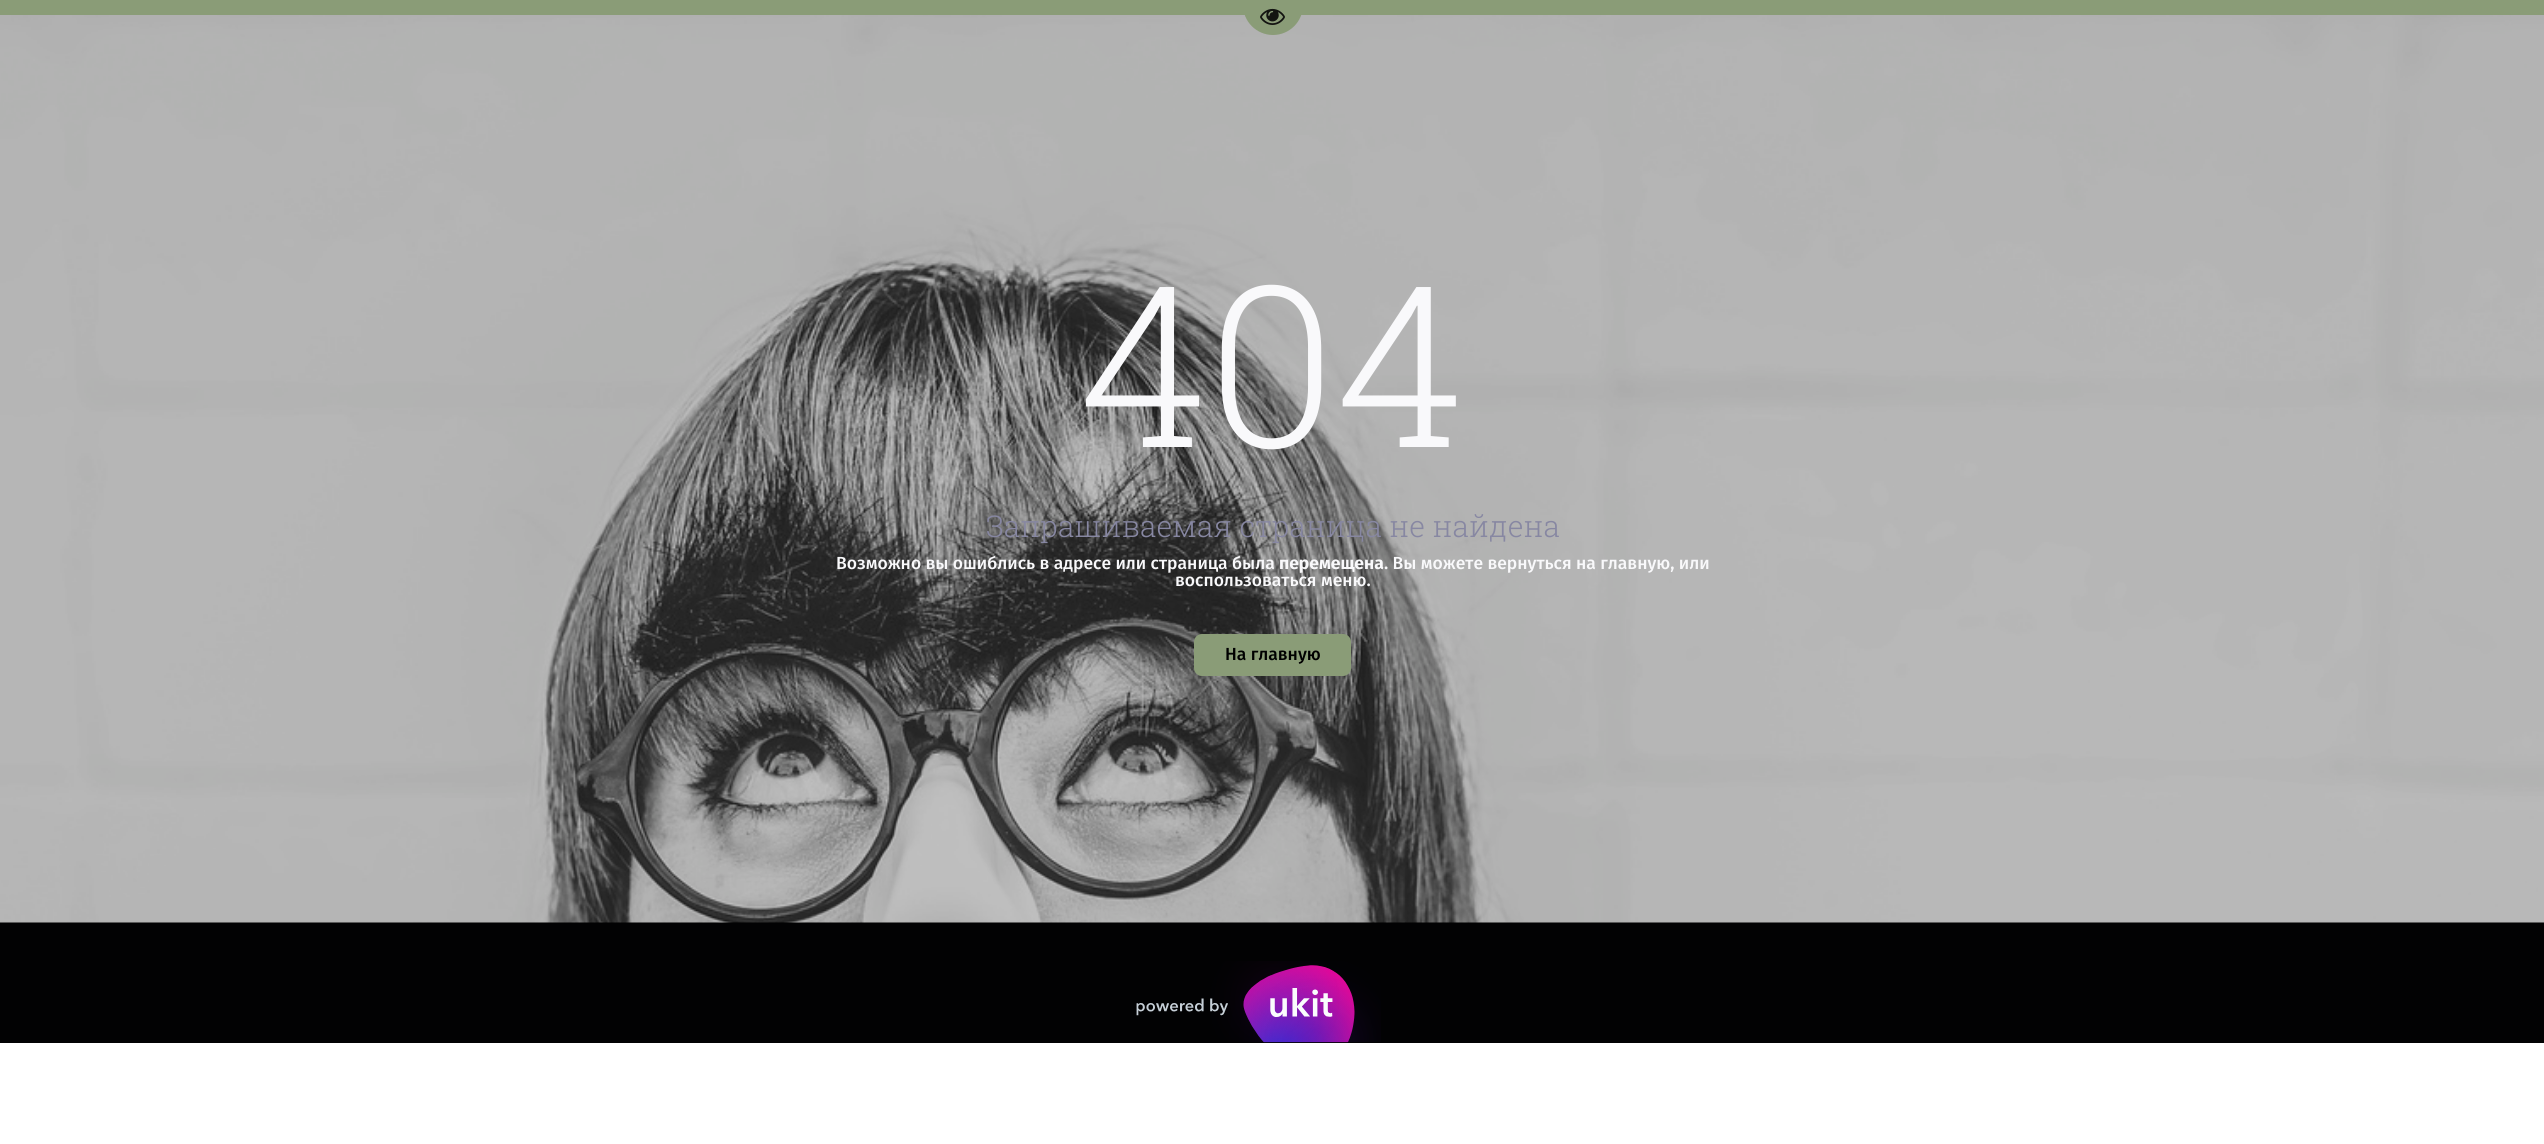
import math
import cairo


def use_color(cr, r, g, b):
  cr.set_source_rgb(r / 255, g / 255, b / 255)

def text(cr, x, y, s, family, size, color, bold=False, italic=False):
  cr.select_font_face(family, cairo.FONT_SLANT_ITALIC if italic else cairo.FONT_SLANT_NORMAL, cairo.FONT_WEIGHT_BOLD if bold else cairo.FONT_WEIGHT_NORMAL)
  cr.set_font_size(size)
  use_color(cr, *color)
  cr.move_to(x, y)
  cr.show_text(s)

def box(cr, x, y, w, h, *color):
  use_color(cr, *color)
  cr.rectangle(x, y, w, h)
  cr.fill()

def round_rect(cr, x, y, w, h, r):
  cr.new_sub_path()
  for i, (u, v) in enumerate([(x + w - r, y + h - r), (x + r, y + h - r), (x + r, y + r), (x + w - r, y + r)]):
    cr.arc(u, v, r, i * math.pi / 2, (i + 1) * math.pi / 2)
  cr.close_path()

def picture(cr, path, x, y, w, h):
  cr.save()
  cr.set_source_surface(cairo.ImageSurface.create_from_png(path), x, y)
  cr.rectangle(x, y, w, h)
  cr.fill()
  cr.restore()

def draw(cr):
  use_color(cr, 255, 255, 255)
  cr.paint()
  box(cr, 0, 0, 2544, 15, 138, 156, 119)
  box(cr, 0, 922, 2544, 1, 0, 0, 0)
  picture(cr, "img_02.png", 0, 15, 2544, 908)
  use_color(cr, 138, 156, 119)
  cr.new_path()
  cr.move_to(1243, -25)
  cr.line_to(1303, -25)
  cr.line_to(1303, 5)
  cr.curve_to(1303, 21.5, 1289.5, 35, 1273, 35)
  cr.curve_to(1256.5, 35, 1243, 21.5, 1243, 5)
  cr.close_path()
  cr.fill()
  picture(cr, "img_01.png", 1260, 8, 25, 17)
  round_rect(cr, 1194, 634, 157, 42, 8)
  cr.fill()
  box(cr, 0, 923, 2544, 120, 2, 2, 3)
  picture(cr, "img_03.png", 1136, 961, 245, 82)
  text(cr, 1079, 447, "404", "Roboto Slab Light", 225, (249, 249, 251))
  text(cr, 986, 537, "Запрашиваемая страница не найдена", "Roboto Slab Light", 30, (135, 135, 162))
  text(cr, 836, 569, "Возможно вы ошиблись в адресе или страница была", "Fira Sans Medium", 17.5, (249, 249, 251))
  text(cr, 1279, 569, "перемещена", "Fira Sans", 17.5, (249, 249, 251), bold=True)
  text(cr, 1384, 569, ". Вы можете вернуться на главную, или", "Fira Sans Medium", 17.5, (249, 249, 251))
  text(cr, 1175, 586, "воспользоваться меню.", "Fira Sans Medium", 17.5, (249, 249, 251))
  text(cr, 1225, 660, "На главную", "Fira Sans Medium", 17.5, (0, 0, 0))


surface = cairo.ImageSurface(cairo.FORMAT_RGB24, 2544, 1144)
cr = cairo.Context(surface)
options = cairo.FontOptions()
options.set_hint_metrics(cairo.HINT_METRICS_OFF)
options.set_hint_style(cairo.HINT_STYLE_NONE)
cr.set_font_options(options)
cr.set_miter_limit(4)
draw(cr)
surface.write_to_png("out.png")
